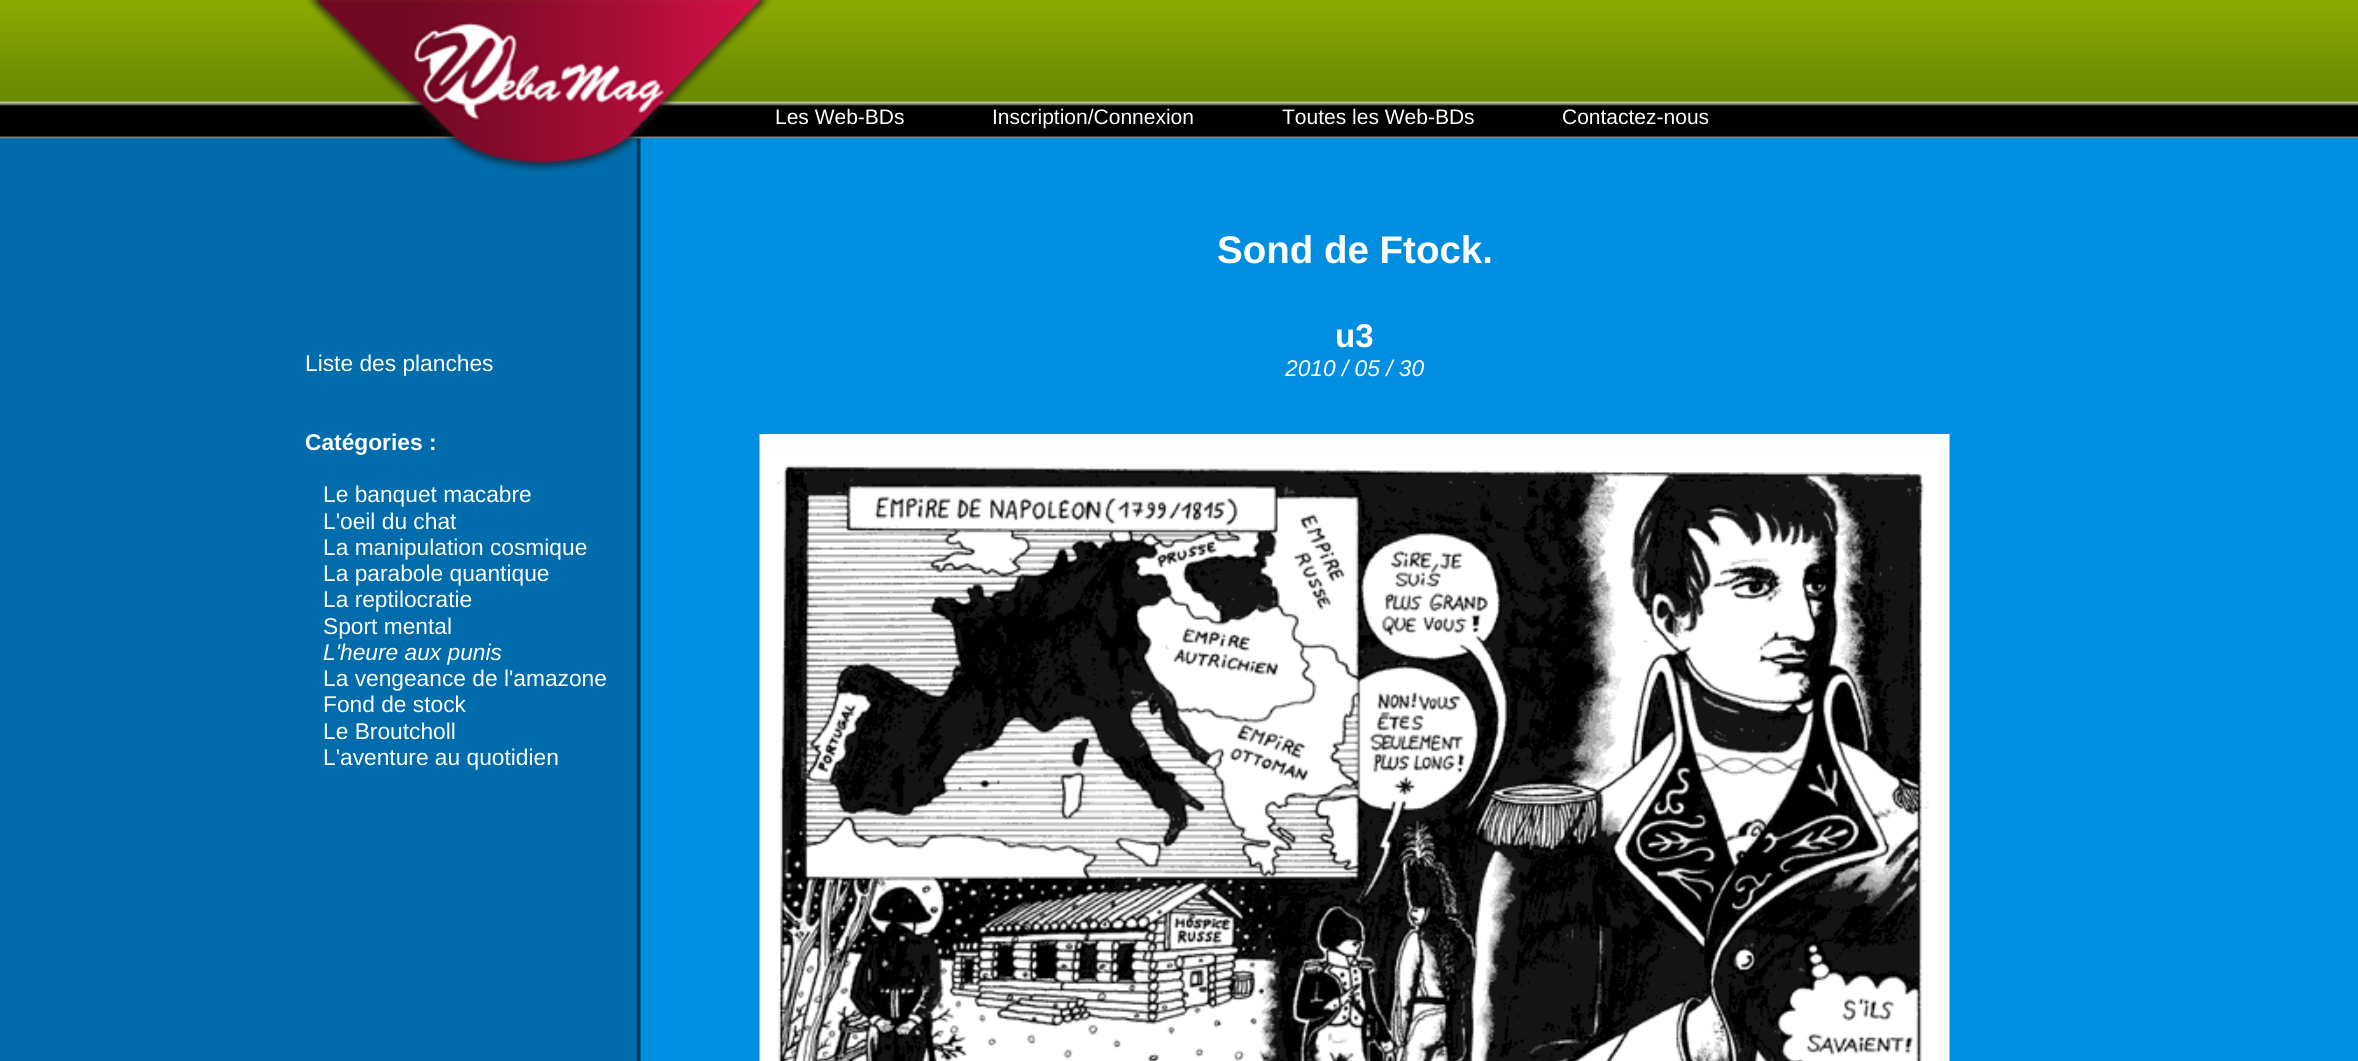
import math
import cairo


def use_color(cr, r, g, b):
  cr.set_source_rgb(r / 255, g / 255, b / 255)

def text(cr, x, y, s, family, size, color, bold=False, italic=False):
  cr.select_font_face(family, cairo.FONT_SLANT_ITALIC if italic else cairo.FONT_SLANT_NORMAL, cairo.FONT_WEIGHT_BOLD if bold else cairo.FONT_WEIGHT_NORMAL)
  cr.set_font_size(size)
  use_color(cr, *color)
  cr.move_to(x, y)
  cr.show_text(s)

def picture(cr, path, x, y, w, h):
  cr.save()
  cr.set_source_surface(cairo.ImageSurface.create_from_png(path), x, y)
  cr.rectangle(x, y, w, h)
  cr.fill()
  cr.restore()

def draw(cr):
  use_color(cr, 0, 142, 224)
  cr.paint()
  picture(cr, "img_01.png", 0, 138, 641, 923)
  picture(cr, "img_02.png", 0, 0, 2358, 139)
  picture(cr, "img_03.png", 306, 0, 466, 172)
  picture(cr, "img_04.png", 759, 434, 1191, 627)
  text(cr, 775, 124, "Les Web-BDs", "Liberation Sans", 21, (255, 255, 255))
  text(cr, 992, 124, "Inscription/Connexion", "Liberation Sans", 21, (255, 255, 255))
  text(cr, 1282, 124, "Toutes les Web-BDs", "Liberation Sans", 21, (255, 255, 255))
  text(cr, 1562, 124, "Contactez-nous", "Liberation Sans", 21, (255, 255, 255))
  text(cr, 1217, 263, "Sond de Ftock.", "Liberation Sans", 38.5, (255, 255, 255), bold=True)
  text(cr, 1335, 347, "u3", "Liberation Sans", 33, (255, 255, 255), bold=True)
  text(cr, 1285, 376, "2010 / 05 / 30", "Liberation Sans", 22.75, (255, 255, 255), italic=True)
  text(cr, 305, 371, "Liste des planches", "Liberation Sans", 22.75, (255, 255, 255))
  text(cr, 305, 450, "Catégories :", "Liberation Sans", 22.75, (255, 255, 255), bold=True)
  text(cr, 323, 502, "Le banquet macabre", "Liberation Sans", 22.75, (255, 255, 255))
  text(cr, 323, 529, "L'oeil du chat", "Liberation Sans", 22.75, (255, 255, 255))
  text(cr, 323, 555, "La manipulation cosmique", "Liberation Sans", 22.75, (255, 255, 255))
  text(cr, 323, 581, "La parabole quantique", "Liberation Sans", 22.75, (255, 255, 255))
  text(cr, 323, 607, "La reptilocratie", "Liberation Sans", 22.75, (255, 255, 255))
  text(cr, 323, 634, "Sport mental", "Liberation Sans", 22.75, (255, 255, 255))
  text(cr, 323, 660, "L'heure aux punis", "Liberation Sans", 22.75, (255, 255, 255), italic=True)
  text(cr, 323, 686, "La vengeance de l'amazone", "Liberation Sans", 22.75, (255, 255, 255))
  text(cr, 323, 712, "Fond de stock", "Liberation Sans", 22.75, (255, 255, 255))
  text(cr, 323, 739, "Le Broutcholl", "Liberation Sans", 22.75, (255, 255, 255))
  text(cr, 323, 765, "L'aventure au quotidien", "Liberation Sans", 22.75, (255, 255, 255))


surface = cairo.ImageSurface(cairo.FORMAT_RGB24, 2358, 1061)
cr = cairo.Context(surface)
options = cairo.FontOptions()
options.set_hint_metrics(cairo.HINT_METRICS_OFF)
options.set_hint_style(cairo.HINT_STYLE_NONE)
cr.set_font_options(options)
cr.set_miter_limit(4)
draw(cr)
surface.write_to_png("out.png")
